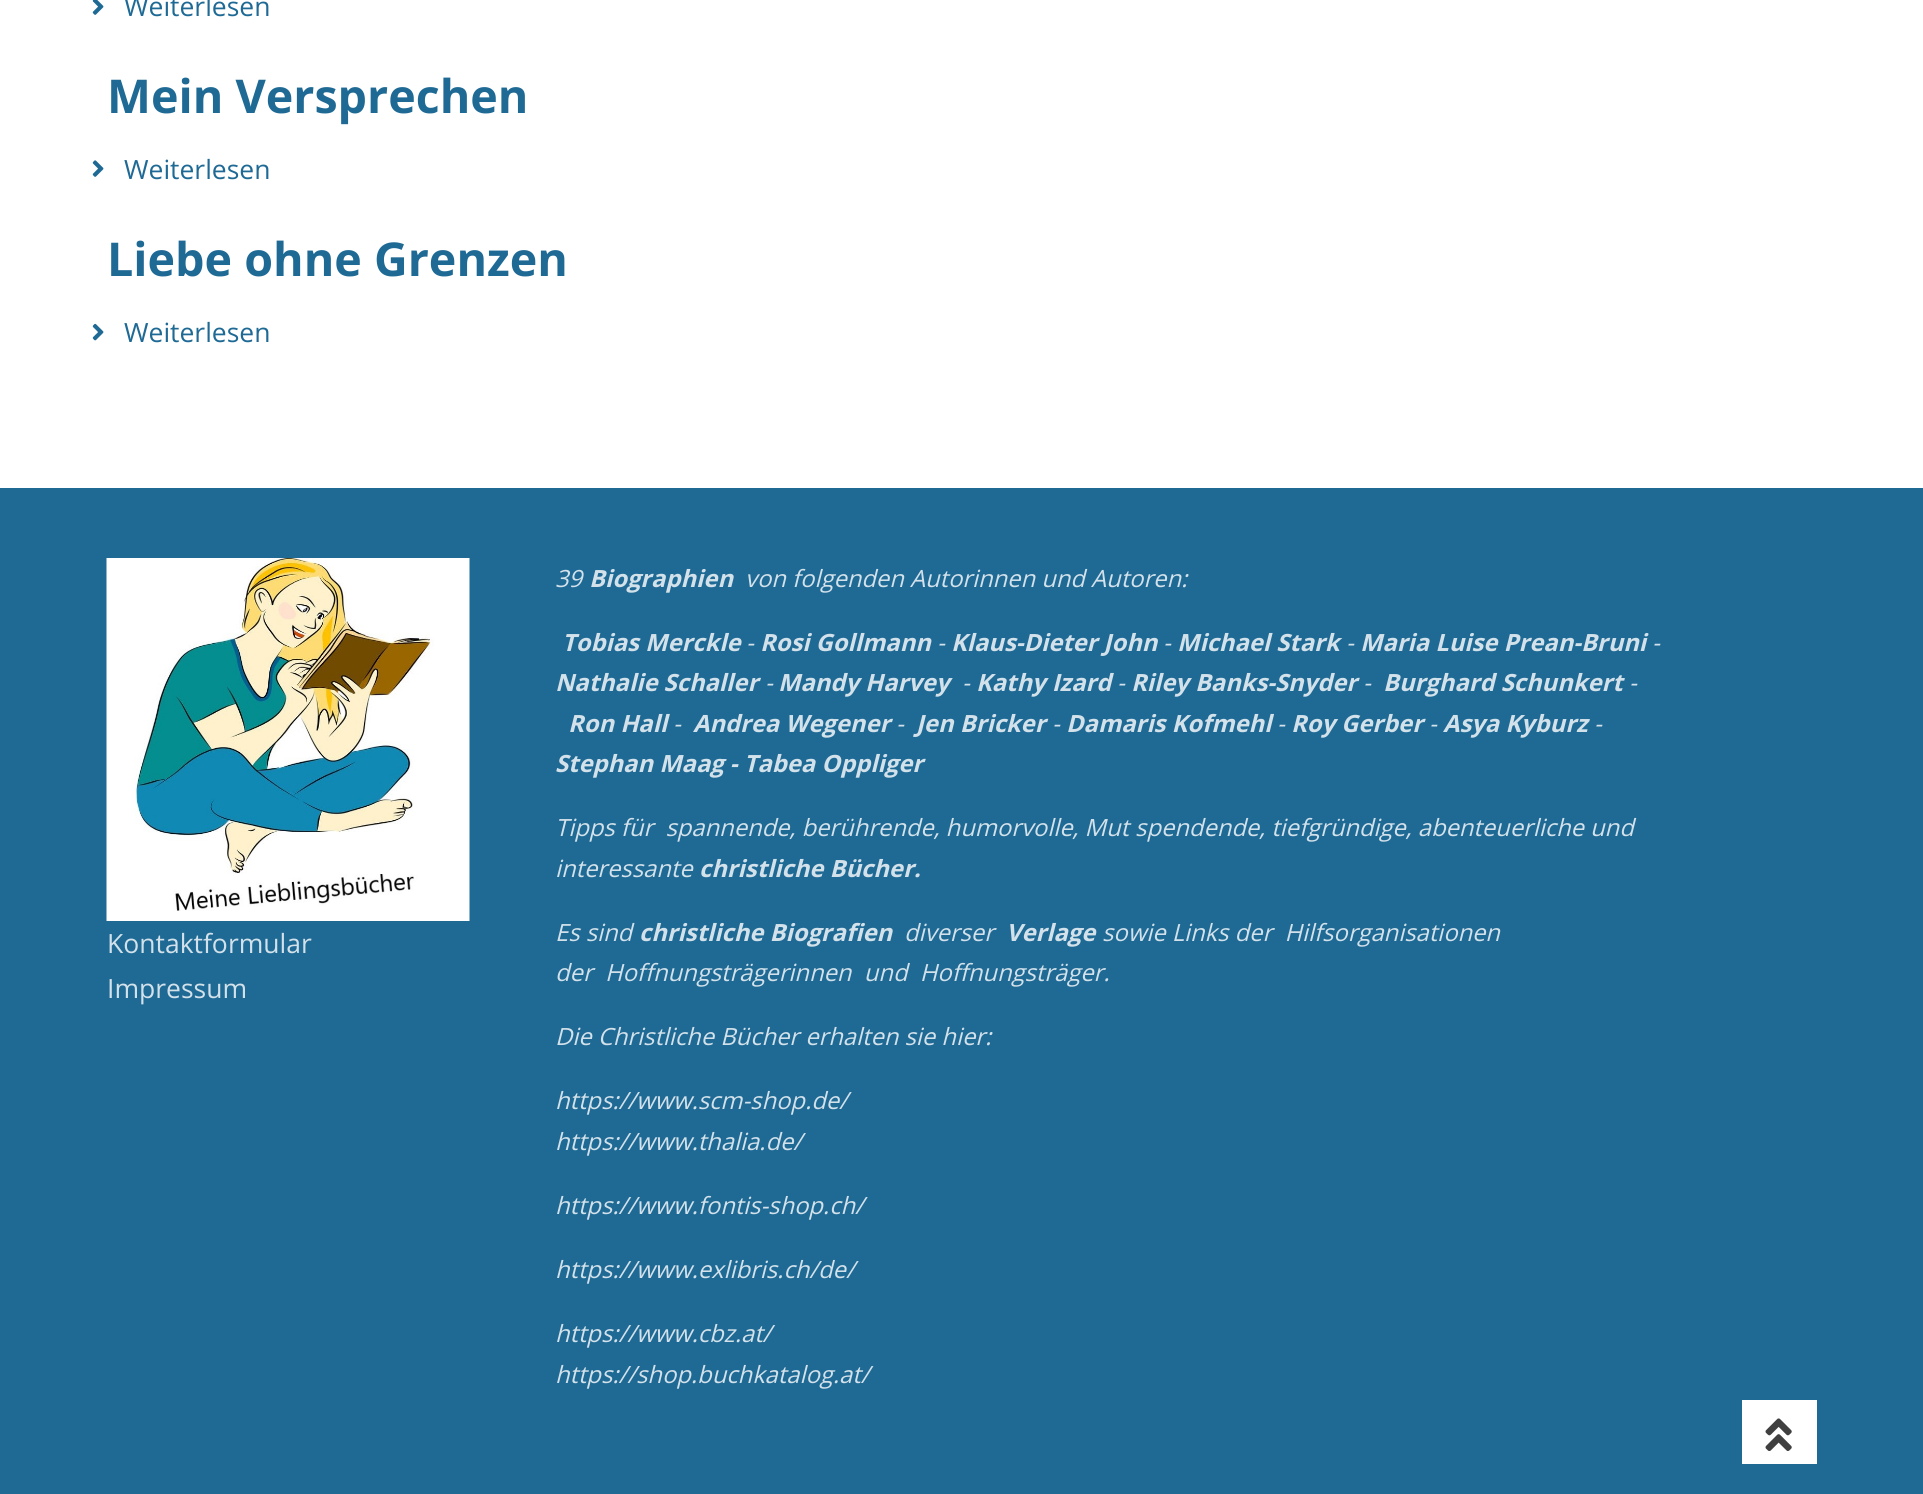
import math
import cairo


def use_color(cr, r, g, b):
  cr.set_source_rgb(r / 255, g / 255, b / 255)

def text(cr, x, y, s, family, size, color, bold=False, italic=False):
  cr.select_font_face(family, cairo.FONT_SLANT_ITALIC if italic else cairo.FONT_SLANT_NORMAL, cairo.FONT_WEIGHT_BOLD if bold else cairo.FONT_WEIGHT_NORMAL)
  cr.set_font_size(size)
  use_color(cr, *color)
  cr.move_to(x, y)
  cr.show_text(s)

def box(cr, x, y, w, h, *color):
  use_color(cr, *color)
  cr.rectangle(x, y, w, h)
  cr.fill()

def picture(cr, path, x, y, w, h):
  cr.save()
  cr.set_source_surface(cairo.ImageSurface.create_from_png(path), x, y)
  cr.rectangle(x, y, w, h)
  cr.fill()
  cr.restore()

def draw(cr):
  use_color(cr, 255, 255, 255)
  cr.paint()
  picture(cr, "img_01.png", 92, 0, 12, 15)
  picture(cr, "img_02.png", 92, 160, 12, 17)
  picture(cr, "img_03.png", 92, 323, 12, 18)
  box(cr, 0, 488, 1923, 1006, 31, 106, 149)
  picture(cr, "img_04.png", 106, 558, 364, 363)
  box(cr, 1742, 1400, 75, 64, 255, 255, 255)
  picture(cr, "img_05.png", 1765, 1418, 27, 33)
  text(cr, 124, 16, "Weiterlesen", "Open Sans", 26.5, (31, 106, 149))
  text(cr, 107, 113, "Mein Versprechen", "Open Sans", 46.6, (31, 106, 149), bold=True)
  text(cr, 124, 179, "Weiterlesen", "Open Sans", 26.5, (31, 106, 149))
  text(cr, 107, 276, "Liebe ohne Grenzen", "Open Sans", 46.6, (31, 106, 149), bold=True)
  text(cr, 124, 342, "Weiterlesen", "Open Sans", 26.5, (31, 106, 149))
  text(cr, 107, 953, "Kontaktformular", "Open Sans", 26.5, (210, 225, 234))
  text(cr, 107, 998, "Impressum", "Open Sans", 26.5, (210, 225, 234))
  text(cr, 555, 587, "39", "Open Sans", 23.75, (210, 225, 234), italic=True)
  text(cr, 589, 587, "Biographien", "Open Sans", 23.75, (210, 225, 234), bold=True, italic=True)
  text(cr, 745, 587, "von folgenden Autorinnen und Autoren:", "Open Sans", 23.75, (210, 225, 234), italic=True)
  text(cr, 562, 651, "Tobias Merckle", "Open Sans", 23.75, (210, 225, 234), bold=True, italic=True)
  text(cr, 746, 651, "-", "Open Sans", 23.75, (210, 225, 234), italic=True)
  text(cr, 760, 651, "Rosi Gollmann", "Open Sans", 23.75, (210, 225, 234), bold=True, italic=True)
  text(cr, 937, 651, "-", "Open Sans", 23.75, (210, 225, 234), italic=True)
  text(cr, 951, 651, "Klaus-Dieter John", "Open Sans", 23.75, (210, 225, 234), bold=True, italic=True)
  text(cr, 1163, 651, "-", "Open Sans", 23.75, (210, 225, 234), italic=True)
  text(cr, 1177, 651, "Michael Stark", "Open Sans", 23.75, (210, 225, 234), bold=True, italic=True)
  text(cr, 1346, 651, "-", "Open Sans", 23.75, (210, 225, 234), italic=True)
  text(cr, 1360, 651, "Maria Luise Prean-Bruni", "Open Sans", 23.75, (210, 225, 234), bold=True, italic=True)
  text(cr, 1652, 651, "-", "Open Sans", 23.75, (210, 225, 234), italic=True)
  text(cr, 555, 691, "Nathalie Schaller", "Open Sans", 23.75, (210, 225, 234), bold=True, italic=True)
  text(cr, 765, 691, "-", "Open Sans", 23.75, (210, 225, 234), italic=True)
  text(cr, 778, 691, "Mandy Harvey", "Open Sans", 23.75, (210, 225, 234), bold=True, italic=True)
  text(cr, 962, 691, "-", "Open Sans", 23.75, (210, 225, 234), italic=True)
  text(cr, 976, 691, "Kathy Izard", "Open Sans", 23.75, (210, 225, 234), bold=True, italic=True)
  text(cr, 1117, 691, "-", "Open Sans", 23.75, (210, 225, 234), italic=True)
  text(cr, 1131, 691, "Riley Banks-Snyder", "Open Sans", 23.75, (210, 225, 234), bold=True, italic=True)
  text(cr, 1363, 691, "-", "Open Sans", 23.75, (210, 225, 234), italic=True)
  text(cr, 1383, 691, "Burghard Schunkert", "Open Sans", 23.75, (210, 225, 234), bold=True, italic=True)
  text(cr, 1629, 691, "-", "Open Sans", 23.75, (210, 225, 234), italic=True)
  text(cr, 568, 732, "Ron Hall", "Open Sans", 23.75, (210, 225, 234), bold=True, italic=True)
  text(cr, 673, 732, "-", "Open Sans", 23.75, (210, 225, 234), italic=True)
  text(cr, 693, 732, "Andrea Wegener", "Open Sans", 23.75, (210, 225, 234), bold=True, italic=True)
  text(cr, 896, 732, "-", "Open Sans", 23.75, (210, 225, 234), italic=True)
  text(cr, 916, 732, "Jen Bricker", "Open Sans", 23.75, (210, 225, 234), bold=True, italic=True)
  text(cr, 1052, 732, "-", "Open Sans", 23.75, (210, 225, 234), italic=True)
  text(cr, 1066, 732, "Damaris Kofmehl", "Open Sans", 23.75, (210, 225, 234), bold=True, italic=True)
  text(cr, 1277, 732, "-", "Open Sans", 23.75, (210, 225, 234), italic=True)
  text(cr, 1291, 732, "Roy Gerber", "Open Sans", 23.75, (210, 225, 234), bold=True, italic=True)
  text(cr, 1429, 732, "-", "Open Sans", 23.75, (210, 225, 234), italic=True)
  text(cr, 1443, 732, "Asya Kyburz", "Open Sans", 23.75, (210, 225, 234), bold=True, italic=True)
  text(cr, 1594, 732, "-", "Open Sans", 23.75, (210, 225, 234), italic=True)
  text(cr, 555, 772, "Stephan Maag - Tabea Oppliger", "Open Sans", 23.75, (210, 225, 234), bold=True, italic=True)
  text(cr, 555, 836, "Tipps für  spannende, berührende, humorvolle, Mut spendende, tiefgründige, abenteuerliche und", "Open Sans", 23.75, (210, 225, 234), italic=True)
  text(cr, 555, 877, "interessante", "Open Sans", 23.75, (210, 225, 234), italic=True)
  text(cr, 699, 877, "christliche Bücher.", "Open Sans", 23.75, (210, 225, 234), bold=True, italic=True)
  text(cr, 555, 941, "Es sind", "Open Sans", 23.75, (210, 225, 234), italic=True)
  text(cr, 639, 941, "christliche Biografien", "Open Sans", 23.75, (210, 225, 234), bold=True, italic=True)
  text(cr, 904, 941, "diverser", "Open Sans", 23.75, (210, 225, 234), italic=True)
  text(cr, 1006, 941, "Verlage", "Open Sans", 23.75, (210, 225, 234), bold=True, italic=True)
  text(cr, 1102, 941, "sowie Links der  Hilfsorganisationen", "Open Sans", 23.75, (210, 225, 234), italic=True)
  text(cr, 555, 981, "der", "Open Sans", 23.75, (210, 225, 234), italic=True)
  text(cr, 605, 981, "Hoffnungsträgerinnen  und  Hoffnungsträger.", "Open Sans", 23.75, (210, 225, 234), italic=True)
  text(cr, 555, 1045, "Die Christliche Bücher erhalten sie hier:", "Open Sans", 23.75, (210, 225, 234), italic=True)
  text(cr, 555, 1109, "https://www.scm-shop.de/", "Open Sans", 23.75, (210, 225, 234), italic=True)
  text(cr, 555, 1150, "https://www.thalia.de/", "Open Sans", 23.75, (210, 225, 234), italic=True)
  text(cr, 555, 1214, "https://www.fontis-shop.ch/", "Open Sans", 23.75, (210, 225, 234), italic=True)
  text(cr, 555, 1278, "https://www.exlibris.ch/de/", "Open Sans", 23.75, (210, 225, 234), italic=True)
  text(cr, 555, 1342, "https://www.cbz.at/", "Open Sans", 23.75, (210, 225, 234), italic=True)
  text(cr, 555, 1383, "https://shop.buchkatalog.at/", "Open Sans", 23.75, (210, 225, 234), italic=True)


surface = cairo.ImageSurface(cairo.FORMAT_RGB24, 1923, 1494)
cr = cairo.Context(surface)
options = cairo.FontOptions()
options.set_hint_metrics(cairo.HINT_METRICS_OFF)
options.set_hint_style(cairo.HINT_STYLE_NONE)
cr.set_font_options(options)
cr.set_miter_limit(4)
draw(cr)
surface.write_to_png("out.png")
